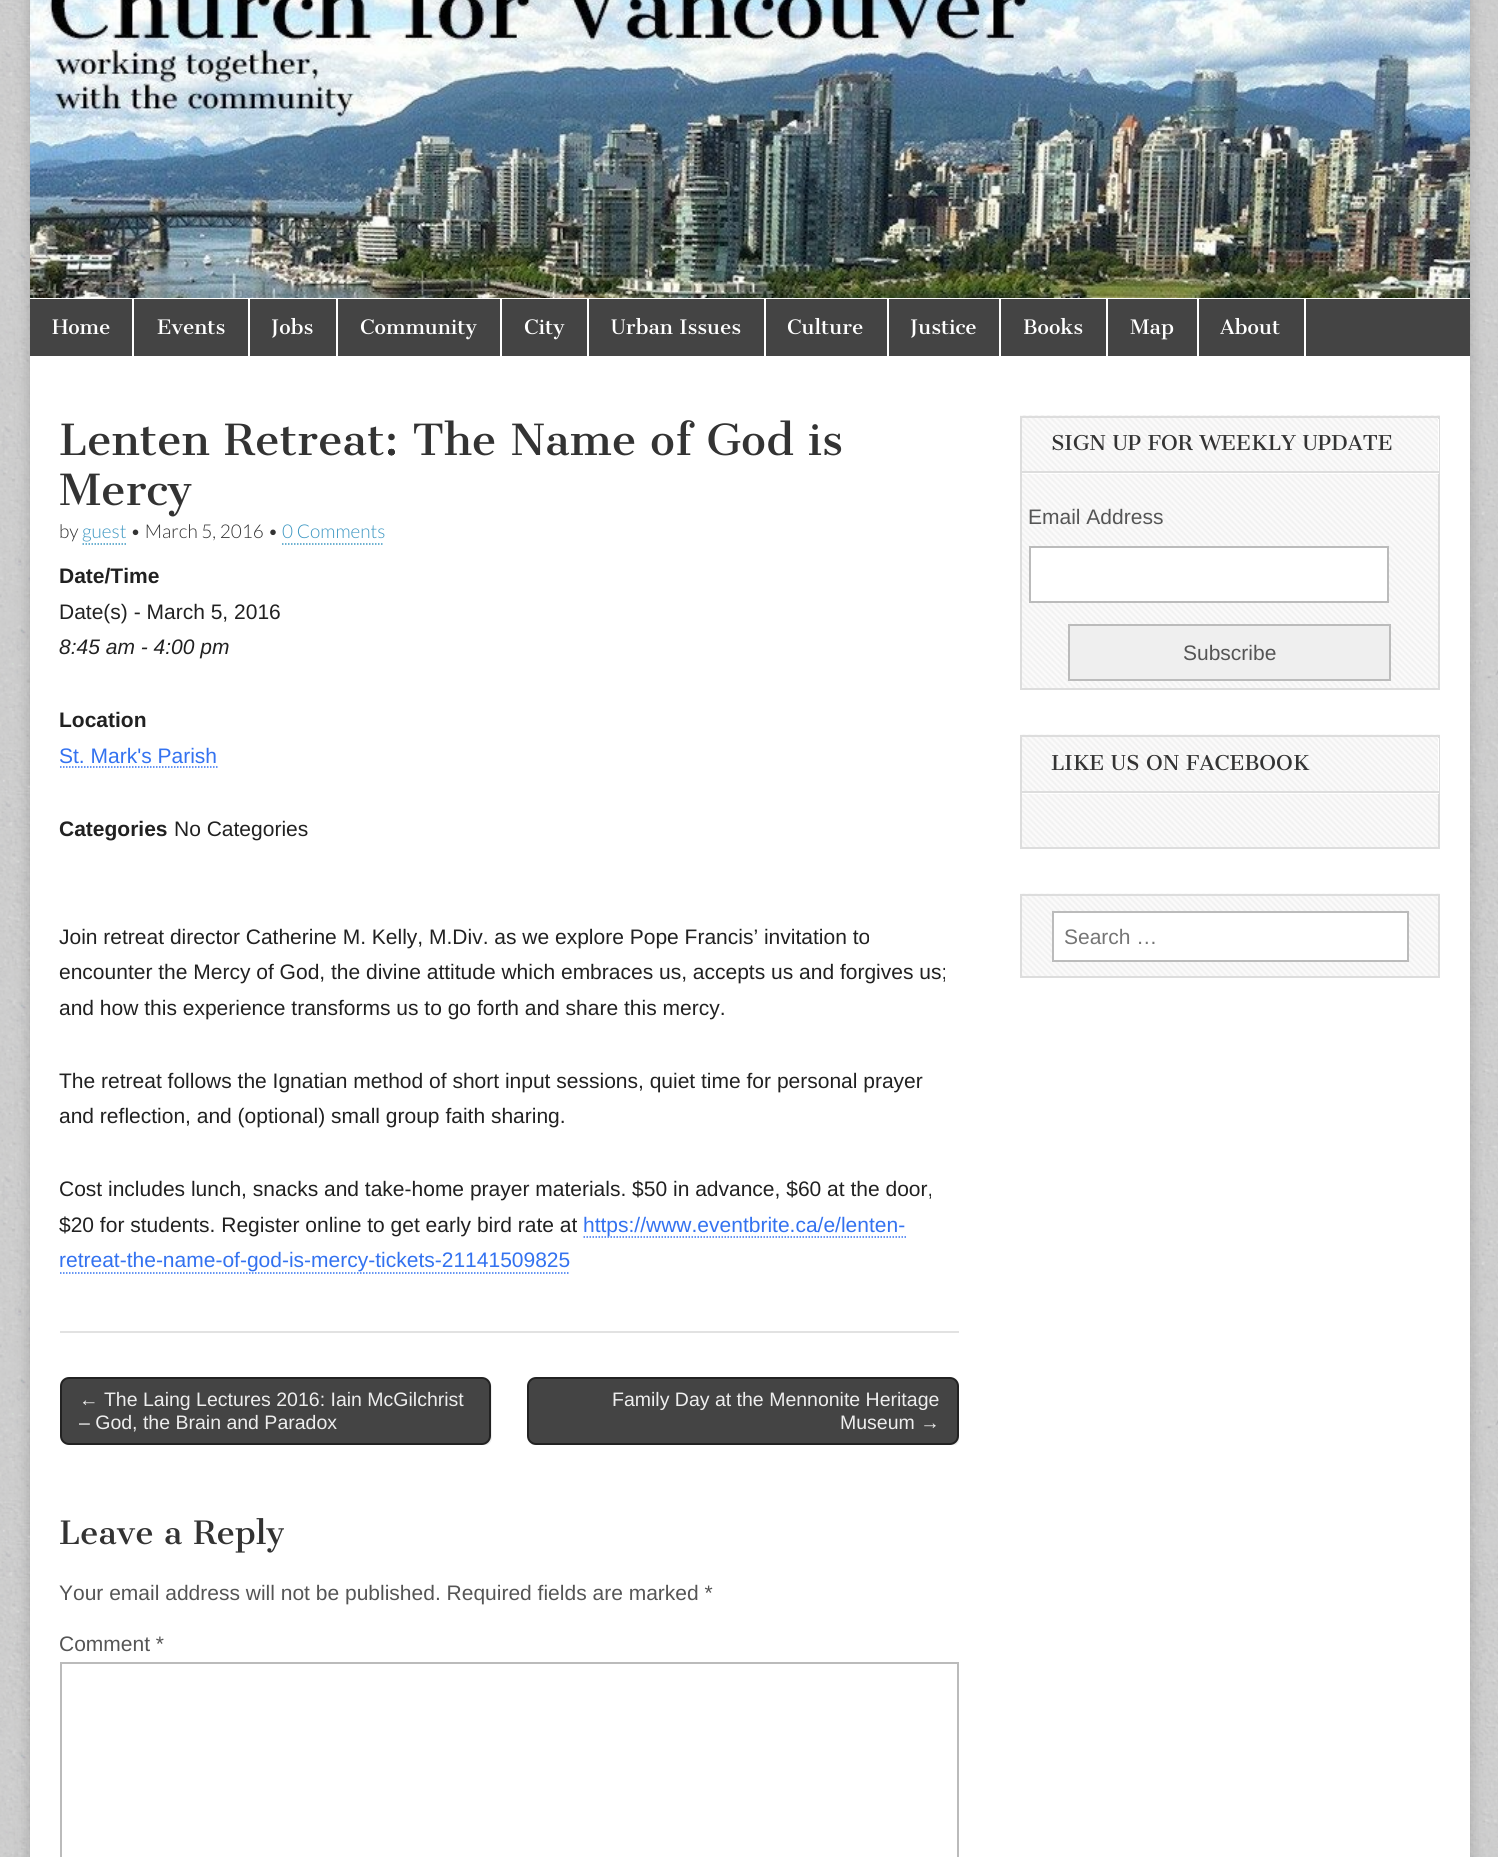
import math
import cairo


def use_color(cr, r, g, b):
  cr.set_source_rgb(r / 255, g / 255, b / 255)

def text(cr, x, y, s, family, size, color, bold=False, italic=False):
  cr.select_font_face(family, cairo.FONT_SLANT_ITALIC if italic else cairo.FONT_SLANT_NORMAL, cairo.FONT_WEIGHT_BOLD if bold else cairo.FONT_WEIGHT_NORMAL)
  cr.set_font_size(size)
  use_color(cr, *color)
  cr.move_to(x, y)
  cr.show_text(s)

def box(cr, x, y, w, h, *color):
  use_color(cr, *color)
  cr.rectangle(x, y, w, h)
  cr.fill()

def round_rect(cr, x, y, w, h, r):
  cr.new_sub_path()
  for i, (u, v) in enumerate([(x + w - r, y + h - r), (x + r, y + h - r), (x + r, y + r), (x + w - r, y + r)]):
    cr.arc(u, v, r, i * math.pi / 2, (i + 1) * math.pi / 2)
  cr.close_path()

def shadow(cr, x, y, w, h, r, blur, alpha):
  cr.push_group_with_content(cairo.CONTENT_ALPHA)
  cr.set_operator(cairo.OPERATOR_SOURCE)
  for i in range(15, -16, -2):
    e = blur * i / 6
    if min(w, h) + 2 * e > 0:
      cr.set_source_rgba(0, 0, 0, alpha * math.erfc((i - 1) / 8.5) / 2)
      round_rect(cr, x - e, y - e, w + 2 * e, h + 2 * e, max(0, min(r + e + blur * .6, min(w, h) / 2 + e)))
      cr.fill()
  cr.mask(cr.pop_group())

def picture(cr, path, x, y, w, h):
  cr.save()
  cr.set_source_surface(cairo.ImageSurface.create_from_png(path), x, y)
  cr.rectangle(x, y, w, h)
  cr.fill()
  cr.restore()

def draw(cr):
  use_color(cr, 255, 255, 255)
  cr.paint()
  picture(cr, "img_01.png", 0, 0, 1498, 1857)
  use_color(cr, 0, 0, 0)
  shadow(cr, 30, -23, 1440, 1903, 0, 7.5, 0.2)
  box(cr, 30, 298, 1440, 1559, 255, 255, 255)
  picture(cr, "img_02.png", 30, 0, 1440, 298)
  box(cr, 30, 299, 1440, 57, 68, 68, 68)
  box(cr, 132, 299, 2, 57, 255, 255, 255)
  box(cr, 248, 299, 2, 57, 255, 255, 255)
  box(cr, 336, 299, 2, 57, 255, 255, 255)
  box(cr, 500, 299, 2, 57, 255, 255, 255)
  box(cr, 587, 299, 2, 57, 255, 255, 255)
  box(cr, 764, 299, 2, 57, 255, 255, 255)
  box(cr, 887, 299, 2, 57, 255, 255, 255)
  box(cr, 999, 299, 2, 57, 255, 255, 255)
  box(cr, 1106, 299, 2, 57, 255, 255, 255)
  box(cr, 1197, 299, 2, 57, 255, 255, 255)
  box(cr, 1304, 299, 2, 57, 255, 255, 255)
  box(cr, 60, 1331, 899, 2, 226, 226, 226)
  cr.new_path()
  cr.move_to(82.5, 544)
  cr.line_to(126, 544)
  use_color(cr, 61, 151, 194)
  cr.set_line_width(1.5)
  cr.set_dash([1.5, 1.5])
  cr.stroke()
  cr.new_path()
  cr.move_to(282, 544)
  cr.line_to(384, 544)
  cr.stroke()
  cr.new_path()
  cr.move_to(60, 767)
  cr.line_to(217.5, 767)
  use_color(cr, 51, 114, 240)
  cr.stroke()
  cr.new_path()
  cr.move_to(583.5, 1237)
  cr.line_to(906, 1237)
  cr.stroke()
  cr.new_path()
  cr.move_to(60, 1273)
  cr.line_to(570, 1273)
  cr.stroke()
  cr.save()
  cr.rectangle(60, 1377, 899, 68)
  cr.clip()
  use_color(cr, 238, 238, 238)
  cr.new_path()
  cr.move_to(65, 1443)
  cr.curve_to(66, 1445, 69, 1446, 71, 1446)
  cr.line_to(483, 1446)
  cr.curve_to(488, 1446, 492, 1442, 492, 1437)
  cr.line_to(492, 1388)
  cr.curve_to(492, 1386, 491, 1383, 489, 1382)
  cr.curve_to(490, 1383, 490, 1384, 490, 1386)
  cr.line_to(490, 1436)
  cr.curve_to(490, 1440, 486, 1444, 482, 1444)
  cr.line_to(69, 1444)
  cr.curve_to(67, 1444, 66, 1444, 65, 1443)
  cr.close_path()
  cr.fill()
  cr.restore()
  use_color(cr, 68, 68, 68)
  round_rect(cr, 61, 1378, 429, 66, 8)
  cr.fill_preserve()
  use_color(cr, 34, 34, 34)
  cr.set_line_width(2)
  cr.set_dash([])
  cr.stroke()
  cr.save()
  cr.rectangle(60, 1377, 899, 68)
  cr.clip()
  use_color(cr, 238, 238, 238)
  cr.new_path()
  cr.move_to(530, 1443)
  cr.curve_to(532, 1445, 534, 1446, 537, 1446)
  cr.line_to(951, 1446)
  cr.curve_to(956, 1446, 960, 1442, 960, 1437)
  cr.line_to(960, 1388)
  cr.curve_to(960, 1386, 959, 1383, 957, 1382)
  cr.curve_to(958, 1383, 958, 1384, 958, 1386)
  cr.line_to(958, 1436)
  cr.curve_to(958, 1440, 954, 1444, 950, 1444)
  cr.line_to(536, 1444)
  cr.curve_to(533, 1444, 531, 1444, 530, 1443)
  cr.close_path()
  cr.fill()
  cr.restore()
  use_color(cr, 68, 68, 68)
  round_rect(cr, 528, 1378, 430, 66, 8)
  cr.fill_preserve()
  use_color(cr, 34, 34, 34)
  cr.stroke()
  cr.rectangle(61, 1663, 897, 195)
  use_color(cr, 187, 187, 187)
  cr.stroke()
  picture(cr, "img_03.png", 1020, 415, 420, 273)
  cr.rectangle(1021, 417, 418, 272)
  use_color(cr, 221, 221, 221)
  cr.stroke()
  use_color(cr, 255, 255, 255)
  cr.new_path()
  cr.move_to(1022, 472)
  cr.line_to(1022, 474)
  cr.line_to(1439, 474)
  cr.line_to(1439, 419)
  cr.line_to(1438, 419)
  cr.line_to(1438, 472)
  cr.close_path()
  cr.fill()
  box(cr, 1022, 471, 417, 2, 221, 221, 221)
  use_color(cr, 255, 255, 255)
  cr.rectangle(1030, 547, 358, 55)
  cr.fill_preserve()
  use_color(cr, 187, 187, 187)
  cr.stroke()
  use_color(cr, 239, 239, 239)
  cr.rectangle(1069, 625, 321, 55)
  cr.fill_preserve()
  use_color(cr, 187, 187, 187)
  cr.stroke()
  picture(cr, "img_04.png", 1020, 734, 420, 113)
  cr.rectangle(1021, 736, 418, 112)
  use_color(cr, 221, 221, 221)
  cr.stroke()
  use_color(cr, 255, 255, 255)
  cr.new_path()
  cr.move_to(1022, 792)
  cr.line_to(1022, 794)
  cr.line_to(1439, 794)
  cr.line_to(1439, 738)
  cr.line_to(1438, 738)
  cr.line_to(1438, 792)
  cr.close_path()
  cr.fill()
  box(cr, 1022, 791, 417, 2, 221, 221, 221)
  picture(cr, "img_05.png", 1020, 893, 420, 83)
  cr.rectangle(1021, 895, 418, 82)
  cr.stroke()
  use_color(cr, 255, 255, 255)
  cr.rectangle(1053, 912, 355, 49)
  cr.fill_preserve()
  use_color(cr, 187, 187, 187)
  cr.stroke()
  text(cr, 52, 334, "Home", "Cantata One", 19.5, (255, 255, 255))
  text(cr, 157, 334, "Events", "Cantata One", 19.5, (255, 255, 255))
  text(cr, 271, 334, "Jobs", "Cantata One", 19.5, (255, 255, 255))
  text(cr, 360, 334, "Community", "Cantata One", 19.5, (255, 255, 255))
  text(cr, 524, 334, "City", "Cantata One", 19.5, (255, 255, 255))
  text(cr, 611, 334, "Urban Issues", "Cantata One", 19.5, (255, 255, 255))
  text(cr, 787, 334, "Culture", "Cantata One", 19.5, (255, 255, 255))
  text(cr, 910, 334, "Justice", "Cantata One", 19.5, (255, 255, 255))
  text(cr, 1023, 334, "Books", "Cantata One", 19.5, (255, 255, 255))
  text(cr, 1130, 334, "Map", "Cantata One", 19.5, (255, 255, 255))
  text(cr, 1220, 334, "About", "Cantata One", 19.5, (255, 255, 255))
  text(cr, 59, 455, "Lenten Retreat: The Name of God is", "Cantata One", 42, (51, 51, 51))
  text(cr, 59, 505, "Mercy", "Cantata One", 42, (51, 51, 51))
  text(cr, 59, 538, "by", "Lato Light", 19, (51, 51, 51))
  text(cr, 82, 538, "guest", "Lato Light", 19, (61, 151, 194))
  text(cr, 130, 538, "• March 5, 2016 •", "Lato Light", 19, (51, 51, 51))
  text(cr, 282, 538, "0 Comments", "Lato Light", 19, (61, 151, 194))
  text(cr, 59, 583, "Date/Time", "Liberation Sans", 21, (33, 33, 33), bold=True)
  text(cr, 59, 619, "Date(s) - March 5, 2016", "Liberation Sans", 21, (33, 33, 33))
  text(cr, 59, 654, "8:45 am - 4:00 pm", "Liberation Sans", 21, (33, 33, 33), italic=True)
  text(cr, 59, 727, "Location", "Liberation Sans", 21, (33, 33, 33), bold=True)
  text(cr, 59, 763, "St. Mark's Parish", "Liberation Sans", 21, (51, 114, 240))
  text(cr, 59, 836, "Categories", "Liberation Sans", 21, (33, 33, 33), bold=True)
  text(cr, 174, 836, "No Categories", "Liberation Sans", 21, (33, 33, 33))
  text(cr, 59, 944, "Join retreat director Catherine M. Kelly, M.Div. as we explore Pope Francis’ invitation to", "Liberation Sans", 21, (33, 33, 33))
  text(cr, 59, 979, "encounter the Mercy of God, the divine attitude which embraces us, accepts us and forgives us;", "Liberation Sans", 21, (33, 33, 33))
  text(cr, 59, 1015, "and how this experience transforms us to go forth and share this mercy.", "Liberation Sans", 21, (33, 33, 33))
  text(cr, 59, 1088, "The retreat follows the Ignatian method of short input sessions, quiet time for personal prayer", "Liberation Sans", 21, (33, 33, 33))
  text(cr, 59, 1123, "and reflection, and (optional) small group faith sharing.", "Liberation Sans", 21, (33, 33, 33))
  text(cr, 59, 1196, "Cost includes lunch, snacks and take-home prayer materials. $50 in advance, $60 at the door,", "Liberation Sans", 21, (33, 33, 33))
  text(cr, 59, 1232, "$20 for students. Register online to get early bird rate at", "Liberation Sans", 21, (33, 33, 33))
  text(cr, 583, 1232, "https://www.eventbrite.ca/e/lenten-", "Liberation Sans", 21, (51, 114, 240))
  text(cr, 59, 1267, "retreat-the-name-of-god-is-mercy-tickets-21141509825", "Liberation Sans", 21, (51, 114, 240))
  text(cr, 79, 1406, "← The Laing Lectures 2016: Iain McGilchrist", "Liberation Sans", 19.5, (238, 238, 238))
  text(cr, 79, 1429, "– God, the Brain and Paradox", "Liberation Sans", 19.5, (238, 238, 238))
  text(cr, 612, 1406, "Family Day at the Mennonite Heritage", "Liberation Sans", 19.5, (238, 238, 238))
  text(cr, 840, 1429, "Museum →", "Liberation Sans", 19.5, (238, 238, 238))
  text(cr, 59, 1544, "Leave a Reply", "Cantata One", 31.5, (51, 51, 51))
  text(cr, 59, 1600, "Your email address will not be published. Required fields are marked *", "Liberation Sans", 21, (85, 85, 85))
  text(cr, 59, 1651, "Comment *", "Liberation Sans", 21, (85, 85, 85))
  text(cr, 1051, 450, "SIGN UP FOR WEEKLY UPDATE", "Cantata One", 20, (51, 51, 51))
  text(cr, 1028, 524, "Email Address", "Liberation Sans", 21, (85, 85, 85))
  text(cr, 1183, 660, "Subscribe", "Liberation Sans", 21, (85, 85, 85))
  text(cr, 1051, 770, "LIKE US ON FACEBOOK", "Cantata One", 20, (51, 51, 51))
  text(cr, 1064, 944, "Search …", "Liberation Sans", 21, (117, 117, 117))


surface = cairo.ImageSurface(cairo.FORMAT_RGB24, 1498, 1857)
cr = cairo.Context(surface)
options = cairo.FontOptions()
options.set_hint_metrics(cairo.HINT_METRICS_OFF)
options.set_hint_style(cairo.HINT_STYLE_NONE)
cr.set_font_options(options)
cr.set_miter_limit(4)
draw(cr)
surface.write_to_png("out.png")
